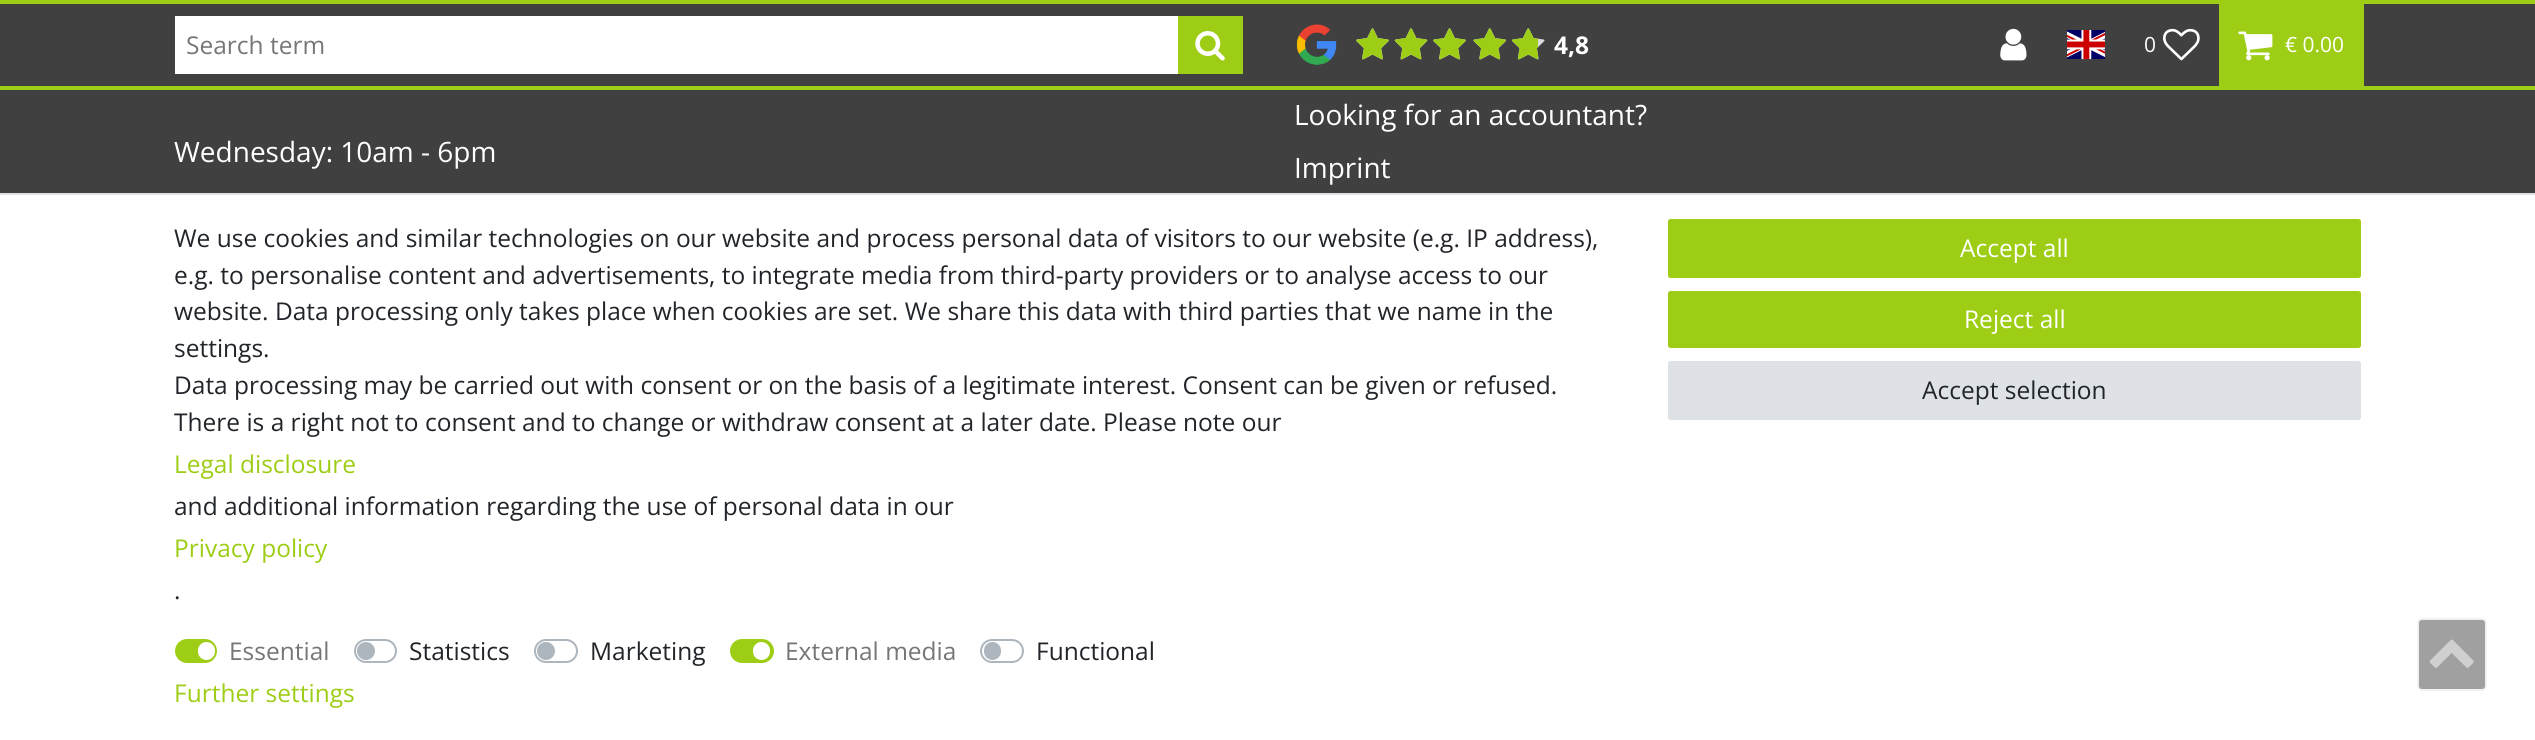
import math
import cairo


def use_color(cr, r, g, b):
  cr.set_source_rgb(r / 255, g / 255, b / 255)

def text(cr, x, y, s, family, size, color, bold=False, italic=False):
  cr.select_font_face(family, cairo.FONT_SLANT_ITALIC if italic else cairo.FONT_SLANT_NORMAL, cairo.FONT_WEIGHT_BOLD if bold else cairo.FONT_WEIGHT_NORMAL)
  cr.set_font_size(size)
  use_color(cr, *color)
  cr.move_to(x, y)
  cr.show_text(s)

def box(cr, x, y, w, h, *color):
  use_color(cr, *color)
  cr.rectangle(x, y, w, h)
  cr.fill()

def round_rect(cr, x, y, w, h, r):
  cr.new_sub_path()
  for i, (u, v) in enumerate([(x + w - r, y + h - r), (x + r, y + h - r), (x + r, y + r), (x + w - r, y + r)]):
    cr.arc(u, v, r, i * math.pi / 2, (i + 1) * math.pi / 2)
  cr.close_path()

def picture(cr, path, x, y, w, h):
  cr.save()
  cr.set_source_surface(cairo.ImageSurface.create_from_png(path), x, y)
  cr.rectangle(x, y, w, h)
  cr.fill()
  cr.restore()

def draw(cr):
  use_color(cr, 64, 64, 64)
  cr.paint()
  box(cr, 0, 0, 2535, 4, 158, 205, 22)
  box(cr, 0, 86, 2535, 4, 158, 205, 22)
  box(cr, 175, 16, 1003, 58, 255, 255, 255)
  box(cr, 1178, 16, 65, 58, 158, 205, 22)
  picture(cr, "img_01.png", 1195, 31, 30, 30)
  picture(cr, "img_02.png", 1296, 24, 41, 41)
  picture(cr, "img_03.png", 1356, 28, 33, 32)
  picture(cr, "img_04.png", 1394, 28, 34, 32)
  picture(cr, "img_03.png", 1433, 28, 33, 32)
  picture(cr, "img_05.png", 1473, 28, 33, 32)
  picture(cr, "img_06.png", 1512, 28, 33, 32)
  picture(cr, "img_07.png", 1356, 28, 33, 32)
  picture(cr, "img_08.png", 1394, 28, 34, 32)
  picture(cr, "img_07.png", 1433, 28, 33, 32)
  picture(cr, "img_09.png", 1473, 28, 33, 32)
  picture(cr, "img_10.png", 1512, 28, 26, 32)
  picture(cr, "img_11.png", 2000, 28, 27, 33)
  picture(cr, "img_12.png", 2067, 30, 38, 30)
  picture(cr, "img_13.png", 2163, 28, 37, 33)
  box(cr, 2219, 4, 145, 82, 158, 205, 22)
  picture(cr, "img_14.png", 2238, 31, 35, 30)
  box(cr, 0, 195, 2535, 545, 255, 255, 255)
  box(cr, 0, 193, 2535, 2, 222, 226, 230)
  use_color(cr, 158, 205, 22)
  round_rect(cr, 176, 640, 40, 22, 11)
  cr.fill_preserve()
  cr.stroke()
  use_color(cr, 255, 255, 255)
  round_rect(cr, 198, 642, 17, 18, 8.5)
  cr.fill()
  round_rect(cr, 355, 640, 41, 22, 11)
  use_color(cr, 173, 181, 189)
  cr.stroke()
  cr.arc(366, 651, 9, 0, 2 * math.pi)
  cr.fill()
  round_rect(cr, 535, 640, 42, 22, 11)
  cr.stroke()
  cr.arc(546, 651, 9, 0, 2 * math.pi)
  cr.fill()
  use_color(cr, 158, 205, 22)
  round_rect(cr, 731, 640, 42, 22, 11)
  cr.fill_preserve()
  cr.stroke()
  use_color(cr, 255, 255, 255)
  round_rect(cr, 753, 642, 17, 18, 8.5)
  cr.fill()
  round_rect(cr, 981, 640, 42, 22, 11)
  use_color(cr, 173, 181, 189)
  cr.stroke()
  round_rect(cr, 984, 642, 17, 18, 8.5)
  cr.fill()
  use_color(cr, 158, 205, 22)
  round_rect(cr, 1669, 220, 691, 57, 1.5)
  cr.fill_preserve()
  cr.stroke()
  round_rect(cr, 1669, 292, 691, 55, 1.5)
  cr.fill_preserve()
  cr.stroke()
  use_color(cr, 222, 226, 230)
  round_rect(cr, 1669, 362, 691, 57, 1.5)
  cr.fill_preserve()
  cr.stroke()
  use_color(cr, 160, 160, 160)
  round_rect(cr, 2418, 619, 68, 71, 4)
  cr.fill_preserve()
  use_color(cr, 239, 241, 243)
  cr.stroke()
  picture(cr, "img_15.png", 2429, 639, 45, 29)
  text(cr, 186, 54, "Search term", "Open Sans", 24.5, (118, 118, 118))
  text(cr, 1554, 54, "4,8", "Open Sans", 24.5, (255, 255, 255), bold=True)
  text(cr, 2144, 52, "0", "Open Sans", 21, (255, 255, 255))
  text(cr, 2285, 52, "€ 0.00", "Open Sans", 21, (255, 255, 255))
  text(cr, 174, 162, "Wednesday: 10am - 6pm", "Open Sans", 28, (255, 255, 255))
  text(cr, 1294, 125, "Looking for an accountant?", "Open Sans", 28, (255, 255, 255))
  text(cr, 1294, 178, "Imprint", "Open Sans", 28, (255, 255, 255))
  text(cr, 174, 247, "We use cookies and similar technologies on our website and process personal data of visitors to our website (e.g. IP address),", "Open Sans", 24.5, (33, 37, 41))
  text(cr, 174, 284, "e.g. to personalise content and advertisements, to integrate media from third-party providers or to analyse access to our", "Open Sans", 24.5, (33, 37, 41))
  text(cr, 174, 320, "website. Data processing only takes place when cookies are set. We share this data with third parties that we name in the", "Open Sans", 24.5, (33, 37, 41))
  text(cr, 174, 357, "settings.", "Open Sans", 24.5, (33, 37, 41))
  text(cr, 174, 394, "Data processing may be carried out with consent or on the basis of a legitimate interest. Consent can be given or refused.", "Open Sans", 24.5, (33, 37, 41))
  text(cr, 174, 431, "There is a right not to consent and to change or withdraw consent at a later date. Please note our", "Open Sans", 24.5, (33, 37, 41))
  text(cr, 174, 473, "Legal disclosure", "Open Sans", 24.5, (158, 205, 22))
  text(cr, 174, 515, "and additional information regarding the use of personal data in our", "Open Sans", 24.5, (33, 37, 41))
  text(cr, 174, 557, "Privacy policy", "Open Sans", 24.5, (158, 205, 22))
  text(cr, 174, 599, ".", "Open Sans", 24.5, (33, 37, 41))
  text(cr, 229, 660, "Essential", "Open Sans", 24.5, (118, 118, 118))
  text(cr, 409, 660, "Statistics", "Open Sans", 24.5, (33, 37, 41))
  text(cr, 590, 660, "Marketing", "Open Sans", 24.5, (33, 37, 41))
  text(cr, 785, 660, "External media", "Open Sans", 24.5, (118, 118, 118))
  text(cr, 1036, 660, "Functional", "Open Sans", 24.5, (33, 37, 41))
  text(cr, 174, 702, "Further settings", "Open Sans", 24.5, (158, 205, 22))
  text(cr, 1960, 257, "Accept all", "Open Sans", 24.5, (255, 255, 255))
  text(cr, 1964, 328, "Reject all", "Open Sans", 24.5, (255, 255, 255))
  text(cr, 1922, 399, "Accept selection", "Open Sans", 24.5, (33, 37, 41))


surface = cairo.ImageSurface(cairo.FORMAT_RGB24, 2535, 740)
cr = cairo.Context(surface)
options = cairo.FontOptions()
options.set_hint_metrics(cairo.HINT_METRICS_OFF)
options.set_hint_style(cairo.HINT_STYLE_NONE)
cr.set_font_options(options)
cr.set_miter_limit(4)
draw(cr)
surface.write_to_png("out.png")
